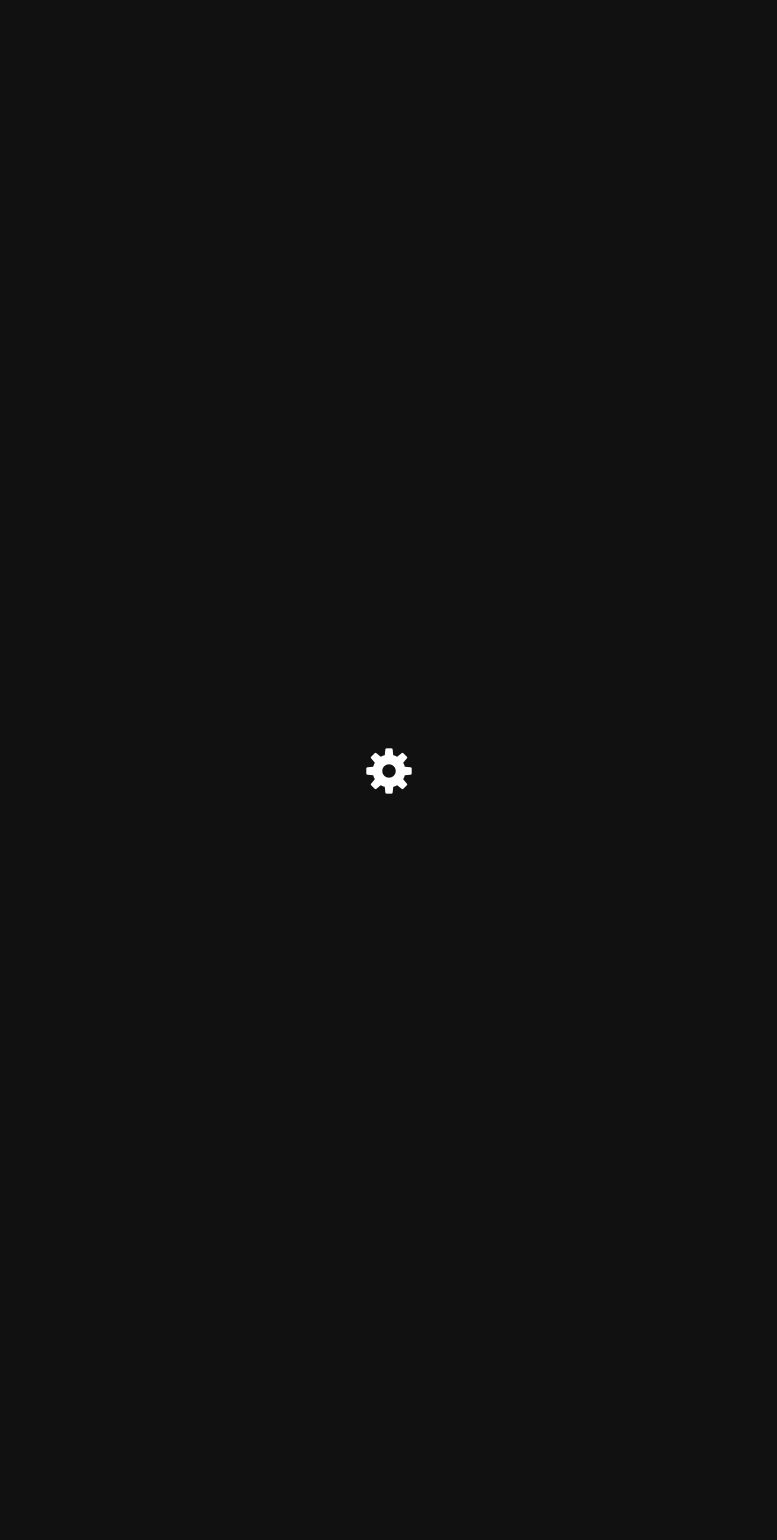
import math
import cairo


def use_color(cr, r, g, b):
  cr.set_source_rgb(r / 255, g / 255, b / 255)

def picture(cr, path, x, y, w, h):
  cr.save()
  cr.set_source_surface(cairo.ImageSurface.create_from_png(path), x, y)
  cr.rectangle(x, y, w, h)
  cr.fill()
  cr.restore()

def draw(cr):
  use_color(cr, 17, 17, 17)
  cr.paint()
  picture(cr, "img_01.png", 366, 748, 46, 46)


surface = cairo.ImageSurface(cairo.FORMAT_RGB24, 777, 1540)
cr = cairo.Context(surface)
options = cairo.FontOptions()
options.set_hint_metrics(cairo.HINT_METRICS_OFF)
options.set_hint_style(cairo.HINT_STYLE_NONE)
cr.set_font_options(options)
cr.set_miter_limit(4)
draw(cr)
surface.write_to_png("out.png")
